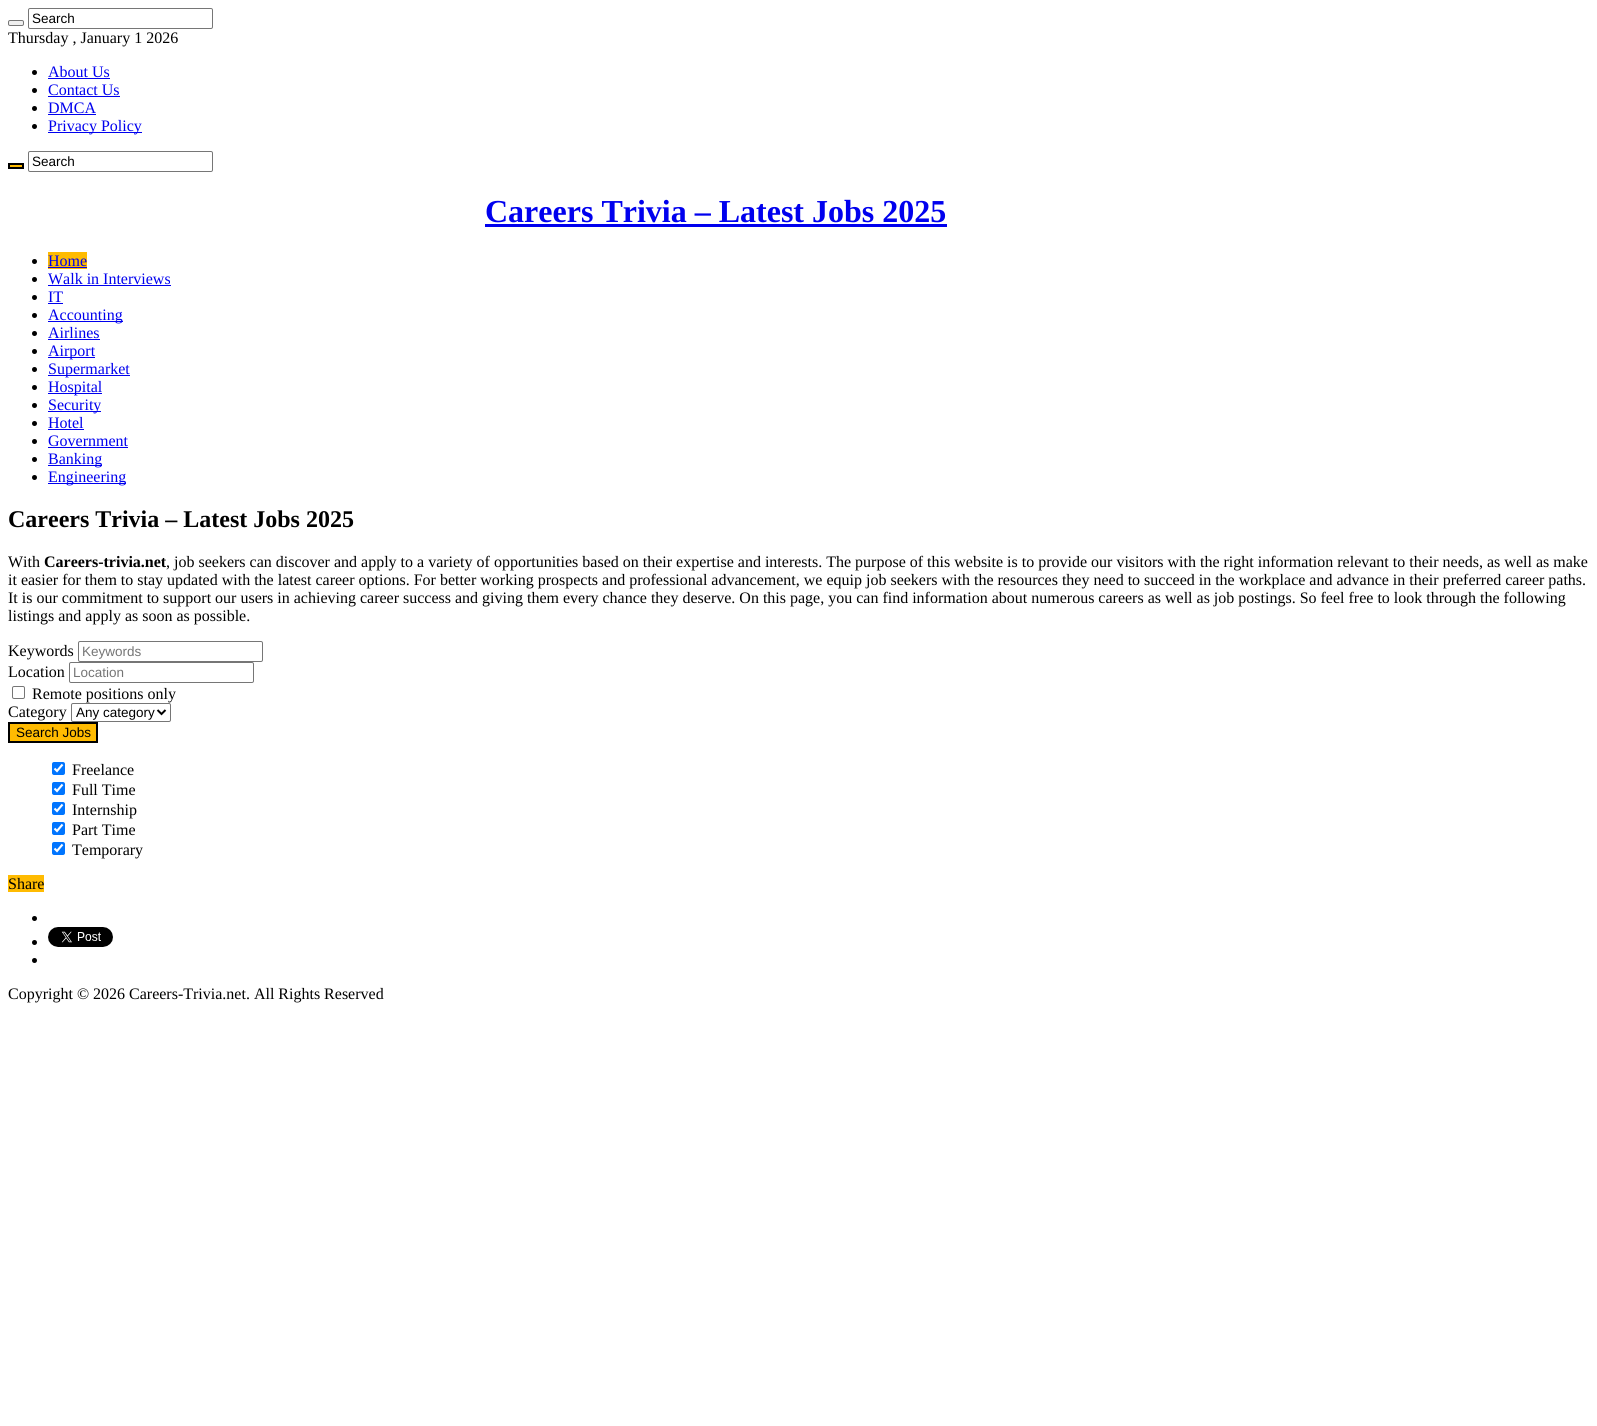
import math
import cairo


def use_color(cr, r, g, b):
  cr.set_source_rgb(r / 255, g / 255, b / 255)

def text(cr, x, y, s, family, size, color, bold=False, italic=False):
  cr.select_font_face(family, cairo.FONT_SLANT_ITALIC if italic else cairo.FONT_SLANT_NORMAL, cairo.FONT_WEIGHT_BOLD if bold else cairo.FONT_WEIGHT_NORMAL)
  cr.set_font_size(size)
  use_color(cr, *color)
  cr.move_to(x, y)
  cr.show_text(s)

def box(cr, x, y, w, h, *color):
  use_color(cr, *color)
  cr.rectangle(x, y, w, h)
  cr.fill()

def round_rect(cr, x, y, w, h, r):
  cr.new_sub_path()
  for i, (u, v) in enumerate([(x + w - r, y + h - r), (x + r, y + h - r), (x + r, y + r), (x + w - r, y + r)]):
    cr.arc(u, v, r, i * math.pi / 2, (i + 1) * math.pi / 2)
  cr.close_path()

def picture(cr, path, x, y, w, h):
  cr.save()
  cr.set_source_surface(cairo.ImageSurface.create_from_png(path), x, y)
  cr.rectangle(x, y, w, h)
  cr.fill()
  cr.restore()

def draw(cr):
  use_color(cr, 255, 255, 255)
  cr.paint()
  use_color(cr, 239, 239, 239)
  round_rect(cr, 8.5, 20.5, 15, 5, 1.5)
  cr.fill_preserve()
  use_color(cr, 118, 118, 118)
  cr.set_line_width(1)
  cr.stroke()
  round_rect(cr, 28.5, 8.5, 184, 20, 1.5)
  cr.stroke()
  use_color(cr, 0, 0, 0)
  cr.arc(34.5, 72.5, 2.5, 0, 2 * math.pi)
  cr.fill()
  box(cr, 48, 78, 62, 1, 0, 0, 238)
  use_color(cr, 0, 0, 0)
  cr.arc(34.5, 90.5, 2.5, 0, 2 * math.pi)
  cr.fill()
  box(cr, 48, 96, 72, 1, 0, 0, 238)
  use_color(cr, 0, 0, 0)
  cr.arc(34.5, 108.5, 2.5, 0, 2 * math.pi)
  cr.fill()
  box(cr, 48, 114, 48, 1, 0, 0, 238)
  use_color(cr, 0, 0, 0)
  cr.arc(34.5, 126.5, 2.5, 0, 2 * math.pi)
  cr.fill()
  box(cr, 48, 132, 94, 1, 0, 0, 238)
  use_color(cr, 255, 187, 1)
  cr.rectangle(9, 164, 14, 4)
  cr.fill_preserve()
  use_color(cr, 0, 0, 0)
  cr.set_line_width(2)
  cr.stroke()
  round_rect(cr, 28.5, 151.5, 184, 20, 1.5)
  use_color(cr, 118, 118, 118)
  cr.set_line_width(1)
  cr.stroke()
  box(cr, 485, 224, 462, 3, 0, 0, 238)
  use_color(cr, 0, 0, 0)
  cr.arc(34.5, 261.5, 2.5, 0, 2 * math.pi)
  cr.fill()
  box(cr, 48, 252, 39, 17, 255, 187, 1)
  box(cr, 48, 267, 39, 1, 0, 0, 238)
  use_color(cr, 0, 0, 0)
  cr.arc(34.5, 279.5, 2.5, 0, 2 * math.pi)
  cr.fill()
  box(cr, 48, 285, 123, 1, 0, 0, 238)
  use_color(cr, 0, 0, 0)
  cr.arc(34.5, 297.5, 2.5, 0, 2 * math.pi)
  cr.fill()
  box(cr, 48, 303, 15, 1, 0, 0, 238)
  use_color(cr, 0, 0, 0)
  cr.arc(34.5, 315.5, 2.5, 0, 2 * math.pi)
  cr.fill()
  box(cr, 48, 321, 75, 1, 0, 0, 238)
  use_color(cr, 0, 0, 0)
  cr.arc(34.5, 333.5, 2.5, 0, 2 * math.pi)
  cr.fill()
  box(cr, 48, 339, 52, 1, 0, 0, 238)
  use_color(cr, 0, 0, 0)
  cr.arc(34.5, 351.5, 2.5, 0, 2 * math.pi)
  cr.fill()
  box(cr, 48, 357, 47, 1, 0, 0, 238)
  use_color(cr, 0, 0, 0)
  cr.arc(34.5, 369.5, 2.5, 0, 2 * math.pi)
  cr.fill()
  box(cr, 48, 375, 82, 1, 0, 0, 238)
  use_color(cr, 0, 0, 0)
  cr.arc(34.5, 387.5, 2.5, 0, 2 * math.pi)
  cr.fill()
  box(cr, 48, 393, 54, 1, 0, 0, 238)
  use_color(cr, 0, 0, 0)
  cr.arc(34.5, 405.5, 2.5, 0, 2 * math.pi)
  cr.fill()
  box(cr, 48, 411, 53, 1, 0, 0, 238)
  use_color(cr, 0, 0, 0)
  cr.arc(34.5, 423.5, 2.5, 0, 2 * math.pi)
  cr.fill()
  box(cr, 48, 429, 36, 1, 0, 0, 238)
  use_color(cr, 0, 0, 0)
  cr.arc(34.5, 441.5, 2.5, 0, 2 * math.pi)
  cr.fill()
  box(cr, 48, 447, 80, 1, 0, 0, 238)
  use_color(cr, 0, 0, 0)
  cr.arc(34.5, 459.5, 2.5, 0, 2 * math.pi)
  cr.fill()
  box(cr, 48, 465, 54, 1, 0, 0, 238)
  use_color(cr, 0, 0, 0)
  cr.arc(34.5, 477.5, 2.5, 0, 2 * math.pi)
  cr.fill()
  box(cr, 48, 483, 78, 1, 0, 0, 238)
  round_rect(cr, 78.5, 641.5, 184, 20, 1.5)
  use_color(cr, 118, 118, 118)
  cr.stroke()
  round_rect(cr, 69.5, 662.5, 184, 20, 1.5)
  cr.stroke()
  round_rect(cr, 12.5, 686.5, 12, 12, 1.5)
  cr.stroke()
  round_rect(cr, 71.5, 703.5, 99, 18, 1.5)
  cr.stroke()
  cr.new_path()
  cr.move_to(157.5, 710)
  cr.line_to(161.5, 714)
  cr.line_to(165.5, 710)
  use_color(cr, 0, 0, 0)
  cr.set_line_width(2)
  cr.stroke()
  use_color(cr, 255, 187, 1)
  cr.rectangle(9, 723, 88, 19)
  cr.fill_preserve()
  use_color(cr, 0, 0, 0)
  cr.stroke()
  use_color(cr, 0, 117, 255)
  round_rect(cr, 52, 762, 13, 13, 2)
  cr.fill()
  cr.new_path()
  cr.move_to(54.5, 768.5)
  cr.line_to(57, 771)
  cr.line_to(62.5, 764.5)
  use_color(cr, 255, 255, 255)
  cr.set_line_width(2.1)
  cr.stroke()
  use_color(cr, 0, 117, 255)
  round_rect(cr, 52, 782, 13, 13, 2)
  cr.fill()
  cr.new_path()
  cr.move_to(54.5, 788.5)
  cr.line_to(57, 791)
  cr.line_to(62.5, 784.5)
  use_color(cr, 255, 255, 255)
  cr.stroke()
  use_color(cr, 0, 117, 255)
  round_rect(cr, 52, 802, 13, 13, 2)
  cr.fill()
  cr.new_path()
  cr.move_to(54.5, 808.5)
  cr.line_to(57, 811)
  cr.line_to(62.5, 804.5)
  use_color(cr, 255, 255, 255)
  cr.stroke()
  use_color(cr, 0, 117, 255)
  round_rect(cr, 52, 822, 13, 13, 2)
  cr.fill()
  cr.new_path()
  cr.move_to(54.5, 828.5)
  cr.line_to(57, 831)
  cr.line_to(62.5, 824.5)
  use_color(cr, 255, 255, 255)
  cr.stroke()
  use_color(cr, 0, 117, 255)
  round_rect(cr, 52, 842, 13, 13, 2)
  cr.fill()
  cr.new_path()
  cr.move_to(54.5, 848.5)
  cr.line_to(57, 851)
  cr.line_to(62.5, 844.5)
  use_color(cr, 255, 255, 255)
  cr.stroke()
  box(cr, 8, 875, 36, 17, 255, 187, 1)
  use_color(cr, 0, 0, 0)
  cr.arc(34.5, 918.5, 2.5, 0, 2 * math.pi)
  cr.fill()
  cr.arc(34.5, 942.5, 2.5, 0, 2 * math.pi)
  cr.fill()
  picture(cr, "img_01.png", 48, 927, 65, 20)
  cr.arc(34.5, 960.5, 2.5, 0, 2 * math.pi)
  cr.fill()
  text(cr, 32, 23, "Search", "Liberation Sans", 13.5, (0, 0, 0))
  text(cr, 8, 43, "Thursday , January 1 2026", "Liberation Serif", 16, (0, 0, 0))
  text(cr, 48, 77, "About Us", "Liberation Serif", 16, (0, 0, 238))
  text(cr, 48, 95, "Contact Us", "Liberation Serif", 16, (0, 0, 238))
  text(cr, 48, 113, "DMCA", "Liberation Serif", 16, (0, 0, 238))
  text(cr, 48, 131, "Privacy Policy", "Liberation Serif", 16, (0, 0, 238))
  text(cr, 32, 166, "Search", "Liberation Sans", 13.5, (0, 0, 0))
  text(cr, 485, 222, "Careers Trivia – Latest Jobs 2025", "Liberation Serif", 32, (0, 0, 238), bold=True)
  text(cr, 48, 266, "Home", "Liberation Serif", 16, (0, 0, 238))
  text(cr, 48, 284, "Walk in Interviews", "Liberation Serif", 16, (0, 0, 238))
  text(cr, 48, 302, "IT", "Liberation Serif", 16, (0, 0, 238))
  text(cr, 48, 320, "Accounting", "Liberation Serif", 16, (0, 0, 238))
  text(cr, 48, 338, "Airlines", "Liberation Serif", 16, (0, 0, 238))
  text(cr, 48, 356, "Airport", "Liberation Serif", 16, (0, 0, 238))
  text(cr, 48, 374, "Supermarket", "Liberation Serif", 16, (0, 0, 238))
  text(cr, 48, 392, "Hospital", "Liberation Serif", 16, (0, 0, 238))
  text(cr, 48, 410, "Security", "Liberation Serif", 16, (0, 0, 238))
  text(cr, 48, 428, "Hotel", "Liberation Serif", 16, (0, 0, 238))
  text(cr, 48, 446, "Government", "Liberation Serif", 16, (0, 0, 238))
  text(cr, 48, 464, "Banking", "Liberation Serif", 16, (0, 0, 238))
  text(cr, 48, 482, "Engineering", "Liberation Serif", 16, (0, 0, 238))
  text(cr, 8, 527, "Careers Trivia – Latest Jobs 2025", "Liberation Serif", 24, (0, 0, 0), bold=True)
  text(cr, 8, 567, "With", "Liberation Serif", 16, (0, 0, 0))
  text(cr, 44, 567, "Careers-trivia.net", "Liberation Serif", 16, (0, 0, 0), bold=True)
  text(cr, 166, 567, ", job seekers can discover and apply to a variety of opportunities based on their expertise and interests. The purpose of this website is to provide our visitors with the right information relevant to their needs, as well as make", "Liberation Serif", 16, (0, 0, 0))
  text(cr, 8, 585, "it easier for them to stay updated with the latest career options. For better working prospects and professional advancement, we equip job seekers with the resources they need to succeed in the workplace and advance in their preferred career paths.", "Liberation Serif", 16, (0, 0, 0))
  text(cr, 8, 603, "It is our commitment to support our users in achieving career success and giving them every chance they deserve. On this page, you can find information about numerous careers as well as job postings. So feel free to look through the following", "Liberation Serif", 16, (0, 0, 0))
  text(cr, 8, 621, "listings and apply as soon as possible.", "Liberation Serif", 16, (0, 0, 0))
  text(cr, 8, 656, "Keywords", "Liberation Serif", 16, (0, 0, 0))
  text(cr, 82, 656, "Keywords", "Liberation Sans", 13.5, (117, 117, 117))
  text(cr, 8, 677, "Location", "Liberation Serif", 16, (0, 0, 0))
  text(cr, 73, 677, "Location", "Liberation Sans", 13.5, (117, 117, 117))
  text(cr, 32, 699, "Remote positions only", "Liberation Serif", 16, (0, 0, 0))
  text(cr, 8, 717, "Category", "Liberation Serif", 16, (0, 0, 0))
  text(cr, 76, 717, "Any category", "Liberation Sans", 13.5, (0, 0, 0))
  text(cr, 16, 737, "Search Jobs", "Liberation Sans", 13.5, (0, 0, 0))
  text(cr, 72, 775, "Freelance", "Liberation Serif", 16, (0, 0, 0))
  text(cr, 72, 795, "Full Time", "Liberation Serif", 16, (0, 0, 0))
  text(cr, 72, 815, "Internship", "Liberation Serif", 16, (0, 0, 0))
  text(cr, 72, 835, "Part Time", "Liberation Serif", 16, (0, 0, 0))
  text(cr, 72, 855, "Temporary", "Liberation Serif", 16, (0, 0, 0))
  text(cr, 8, 889, "Share", "Liberation Serif", 16, (0, 0, 0))
  text(cr, 8, 999, "Copyright © 2026 Careers-Trivia.net. All Rights Reserved", "Liberation Serif", 16, (0, 0, 0))


surface = cairo.ImageSurface(cairo.FORMAT_RGB24, 1597, 1426)
cr = cairo.Context(surface)
options = cairo.FontOptions()
options.set_hint_metrics(cairo.HINT_METRICS_OFF)
options.set_hint_style(cairo.HINT_STYLE_NONE)
cr.set_font_options(options)
cr.set_miter_limit(4)
draw(cr)
surface.write_to_png("out.png")
